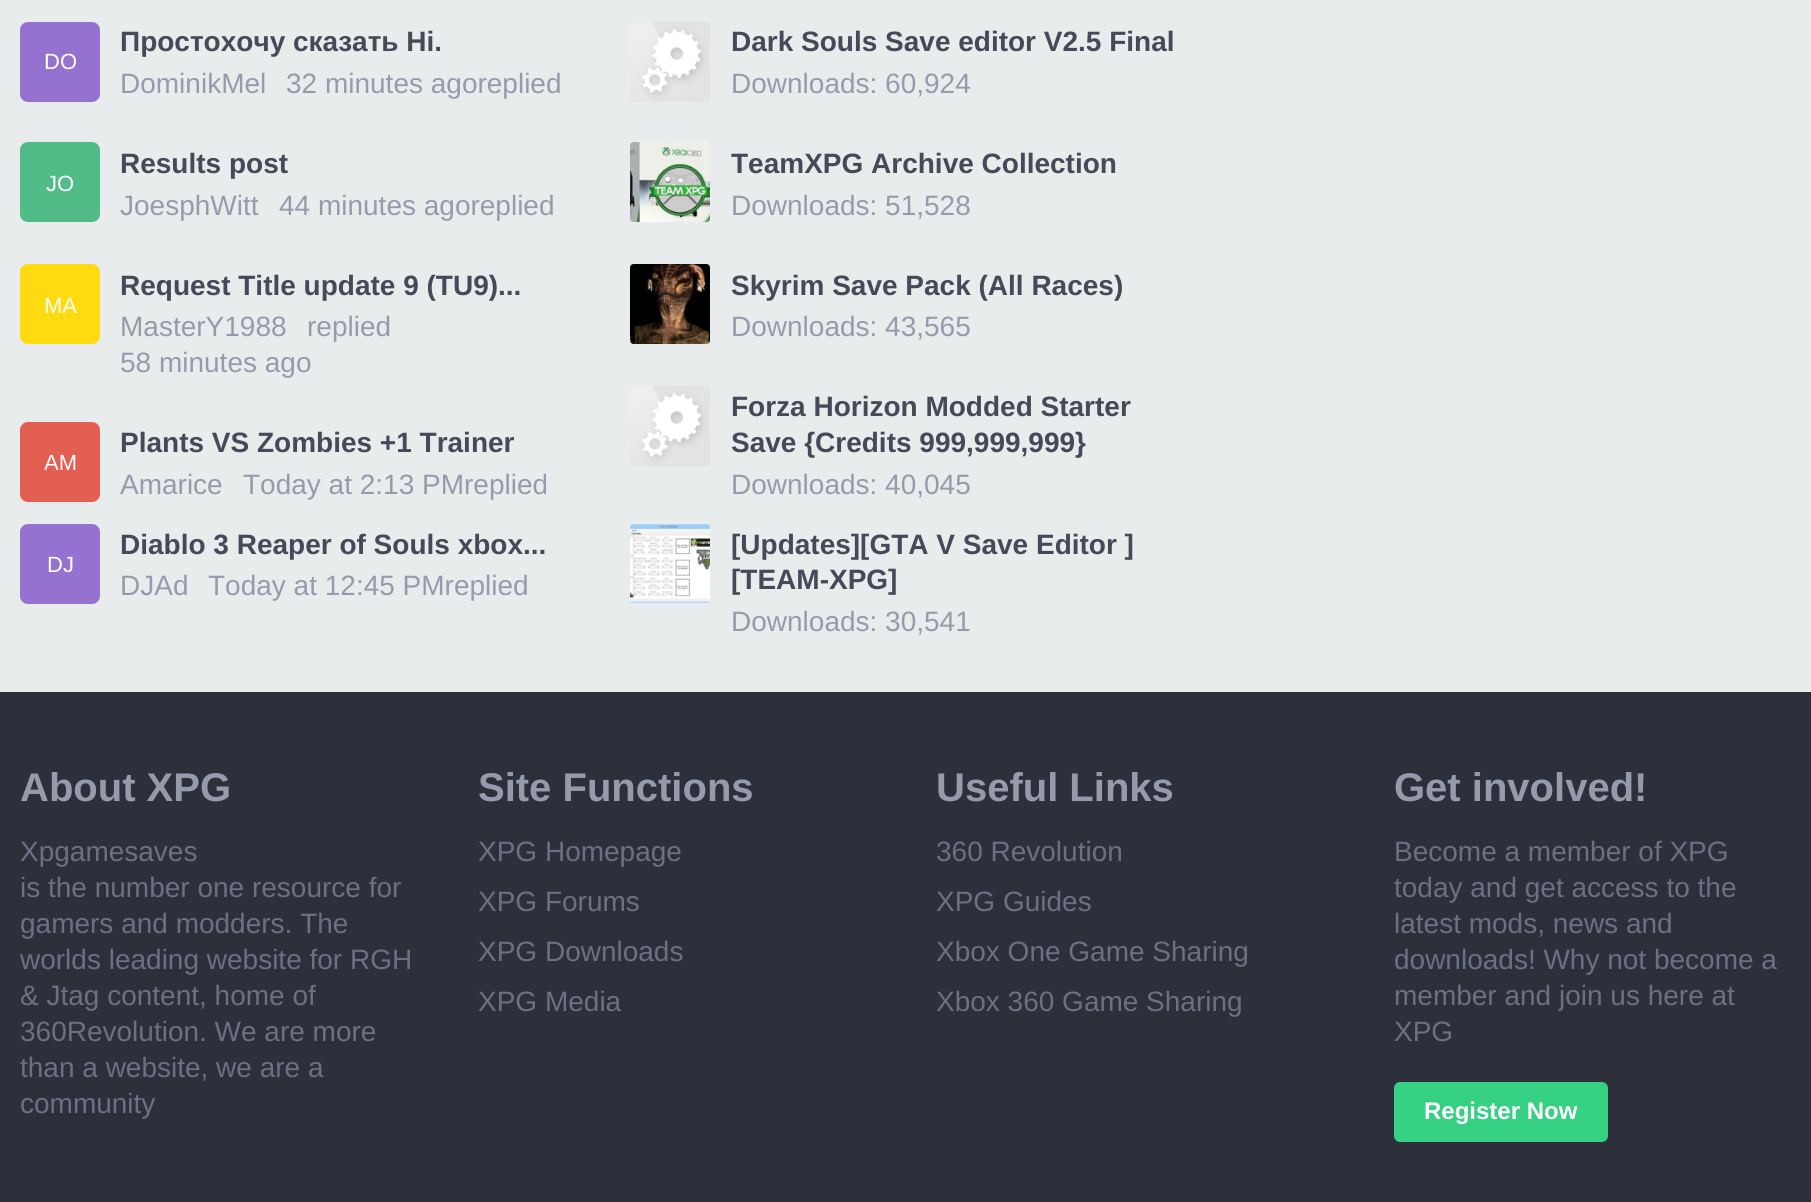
import math
import cairo


def use_color(cr, r, g, b):
  cr.set_source_rgb(r / 255, g / 255, b / 255)

def text(cr, x, y, s, family, size, color, bold=False, italic=False):
  cr.select_font_face(family, cairo.FONT_SLANT_ITALIC if italic else cairo.FONT_SLANT_NORMAL, cairo.FONT_WEIGHT_BOLD if bold else cairo.FONT_WEIGHT_NORMAL)
  cr.set_font_size(size)
  use_color(cr, *color)
  cr.move_to(x, y)
  cr.show_text(s)

def box(cr, x, y, w, h, *color):
  use_color(cr, *color)
  cr.rectangle(x, y, w, h)
  cr.fill()

def round_rect(cr, x, y, w, h, r):
  cr.new_sub_path()
  for i, (u, v) in enumerate([(x + w - r, y + h - r), (x + r, y + h - r), (x + r, y + r), (x + w - r, y + r)]):
    cr.arc(u, v, r, i * math.pi / 2, (i + 1) * math.pi / 2)
  cr.close_path()

def picture(cr, path, x, y, w, h):
  cr.save()
  cr.set_source_surface(cairo.ImageSurface.create_from_png(path), x, y)
  cr.rectangle(x, y, w, h)
  cr.fill()
  cr.restore()

def draw(cr):
  use_color(cr, 45, 48, 58)
  cr.paint()
  box(cr, 0, 0, 1811, 692, 233, 236, 236)
  use_color(cr, 149, 114, 207)
  round_rect(cr, 20, 22, 80, 80, 8)
  cr.fill()
  use_color(cr, 82, 188, 137)
  round_rect(cr, 20, 142, 80, 80, 8)
  cr.fill()
  use_color(cr, 254, 218, 16)
  round_rect(cr, 20, 264, 80, 80, 8)
  cr.fill()
  use_color(cr, 226, 95, 81)
  round_rect(cr, 20, 422, 80, 80, 8)
  cr.fill()
  use_color(cr, 149, 114, 207)
  round_rect(cr, 20, 524, 80, 80, 8)
  cr.fill()
  picture(cr, "img_01.png", 630, 22, 80, 80)
  picture(cr, "img_02.png", 630, 142, 80, 80)
  picture(cr, "img_03.png", 630, 264, 80, 80)
  picture(cr, "img_01.png", 630, 386, 80, 80)
  picture(cr, "img_04.png", 630, 524, 80, 80)
  use_color(cr, 53, 208, 130)
  round_rect(cr, 1394, 1082, 214, 60, 6)
  cr.fill()
  text(cr, 120, 51, "Простохочу сказать Hi.", "Liberation Sans", 28, (70, 74, 88), bold=True)
  text(cr, 44, 69, "DO", "Liberation Sans", 22, (255, 255, 255))
  text(cr, 120, 93, "DominikMel", "Liberation Sans", 28, (150, 155, 172))
  text(cr, 286, 93, "32 minutes agoreplied", "Liberation Sans", 28, (150, 155, 172))
  text(cr, 120, 173, "Results post", "Liberation Sans", 28, (70, 74, 88), bold=True)
  text(cr, 46, 191, "JO", "Liberation Sans", 22, (255, 255, 255))
  text(cr, 120, 215, "JoesphWitt", "Liberation Sans", 28, (150, 155, 172))
  text(cr, 279, 215, "44 minutes agoreplied", "Liberation Sans", 28, (150, 155, 172))
  text(cr, 120, 295, "Request Title update 9 (TU9)...", "Liberation Sans", 28, (70, 74, 88), bold=True)
  text(cr, 44, 313, "MA", "Liberation Sans", 22, (255, 255, 255))
  text(cr, 120, 336, "MasterY1988", "Liberation Sans", 28, (150, 155, 172))
  text(cr, 307, 336, "replied", "Liberation Sans", 28, (150, 155, 172))
  text(cr, 120, 372, "58 minutes ago", "Liberation Sans", 28, (150, 155, 172))
  text(cr, 120, 452, "Plants VS Zombies +1 Trainer", "Liberation Sans", 28, (70, 74, 88), bold=True)
  text(cr, 44, 470, "AM", "Liberation Sans", 22, (255, 255, 255))
  text(cr, 120, 494, "Amarice", "Liberation Sans", 28, (150, 155, 172))
  text(cr, 243, 494, "Today at 2:13 PMreplied", "Liberation Sans", 28, (150, 155, 172))
  text(cr, 120, 554, "Diablo 3 Reaper of Souls xbox...", "Liberation Sans", 28, (70, 74, 88), bold=True)
  text(cr, 47, 572, "DJ", "Liberation Sans", 22, (255, 255, 255))
  text(cr, 120, 595, "DJAd", "Liberation Sans", 28, (150, 155, 172))
  text(cr, 208, 595, "Today at 12:45 PMreplied", "Liberation Sans", 28, (150, 155, 172))
  text(cr, 731, 51, "Dark Souls Save editor V2.5 Final", "Liberation Sans", 28, (70, 74, 88), bold=True)
  text(cr, 731, 93, "Downloads: 60,924", "Liberation Sans", 28, (150, 155, 172))
  text(cr, 731, 173, "TeamXPG Archive Collection", "Liberation Sans", 28, (70, 74, 88), bold=True)
  text(cr, 731, 215, "Downloads: 51,528", "Liberation Sans", 28, (150, 155, 172))
  text(cr, 731, 295, "Skyrim Save Pack (All Races)", "Liberation Sans", 28, (70, 74, 88), bold=True)
  text(cr, 731, 336, "Downloads: 43,565", "Liberation Sans", 28, (150, 155, 172))
  text(cr, 731, 416, "Forza Horizon Modded Starter", "Liberation Sans", 28, (70, 74, 88), bold=True)
  text(cr, 731, 452, "Save {Credits 999,999,999}", "Liberation Sans", 28, (70, 74, 88), bold=True)
  text(cr, 731, 494, "Downloads: 40,045", "Liberation Sans", 28, (150, 155, 172))
  text(cr, 731, 554, "[Updates][GTA V Save Editor ]", "Liberation Sans", 28, (70, 74, 88), bold=True)
  text(cr, 731, 589, "[TEAM-XPG]", "Liberation Sans", 28, (70, 74, 88), bold=True)
  text(cr, 731, 631, "Downloads: 30,541", "Liberation Sans", 28, (150, 155, 172))
  text(cr, 20, 801, "About XPG", "Liberation Sans", 40, (150, 155, 172), bold=True)
  text(cr, 20, 861, "Xpgamesaves", "Liberation Sans", 28, (107, 112, 130))
  text(cr, 20, 897, "is the number one resource for", "Liberation Sans", 28, (107, 112, 130))
  text(cr, 20, 933, "gamers and modders. The", "Liberation Sans", 28, (107, 112, 130))
  text(cr, 20, 969, "worlds leading website for RGH", "Liberation Sans", 28, (107, 112, 130))
  text(cr, 20, 1005, "& Jtag content, home of", "Liberation Sans", 28, (107, 112, 130))
  text(cr, 20, 1041, "360Revolution. We are more", "Liberation Sans", 28, (107, 112, 130))
  text(cr, 20, 1077, "than a website, we are a", "Liberation Sans", 28, (107, 112, 130))
  text(cr, 20, 1113, "community", "Liberation Sans", 28, (107, 112, 130))
  text(cr, 478, 801, "Site Functions", "Liberation Sans", 40, (150, 155, 172), bold=True)
  text(cr, 478, 861, "XPG Homepage", "Liberation Sans", 28, (107, 112, 130))
  text(cr, 478, 911, "XPG Forums", "Liberation Sans", 28, (107, 112, 130))
  text(cr, 478, 961, "XPG Downloads", "Liberation Sans", 28, (107, 112, 130))
  text(cr, 478, 1011, "XPG Media", "Liberation Sans", 28, (107, 112, 130))
  text(cr, 936, 801, "Useful Links", "Liberation Sans", 40, (150, 155, 172), bold=True)
  text(cr, 936, 861, "360 Revolution", "Liberation Sans", 28, (107, 112, 130))
  text(cr, 936, 911, "XPG Guides", "Liberation Sans", 28, (107, 112, 130))
  text(cr, 936, 961, "Xbox One Game Sharing", "Liberation Sans", 28, (107, 112, 130))
  text(cr, 936, 1011, "Xbox 360 Game Sharing", "Liberation Sans", 28, (107, 112, 130))
  text(cr, 1394, 801, "Get involved!", "Liberation Sans", 40, (150, 155, 172), bold=True)
  text(cr, 1394, 861, "Become a member of XPG", "Liberation Sans", 28, (107, 112, 130))
  text(cr, 1394, 897, "today and get access to the", "Liberation Sans", 28, (107, 112, 130))
  text(cr, 1394, 933, "latest mods, news and", "Liberation Sans", 28, (107, 112, 130))
  text(cr, 1394, 969, "downloads! Why not become a", "Liberation Sans", 28, (107, 112, 130))
  text(cr, 1394, 1005, "member and join us here at", "Liberation Sans", 28, (107, 112, 130))
  text(cr, 1394, 1041, "XPG", "Liberation Sans", 28, (107, 112, 130))
  text(cr, 1424, 1119, "Register Now", "Liberation Sans", 24, (255, 255, 255), bold=True)


surface = cairo.ImageSurface(cairo.FORMAT_RGB24, 1811, 1202)
cr = cairo.Context(surface)
options = cairo.FontOptions()
options.set_hint_metrics(cairo.HINT_METRICS_OFF)
options.set_hint_style(cairo.HINT_STYLE_NONE)
cr.set_font_options(options)
cr.set_miter_limit(4)
draw(cr)
surface.write_to_png("out.png")
